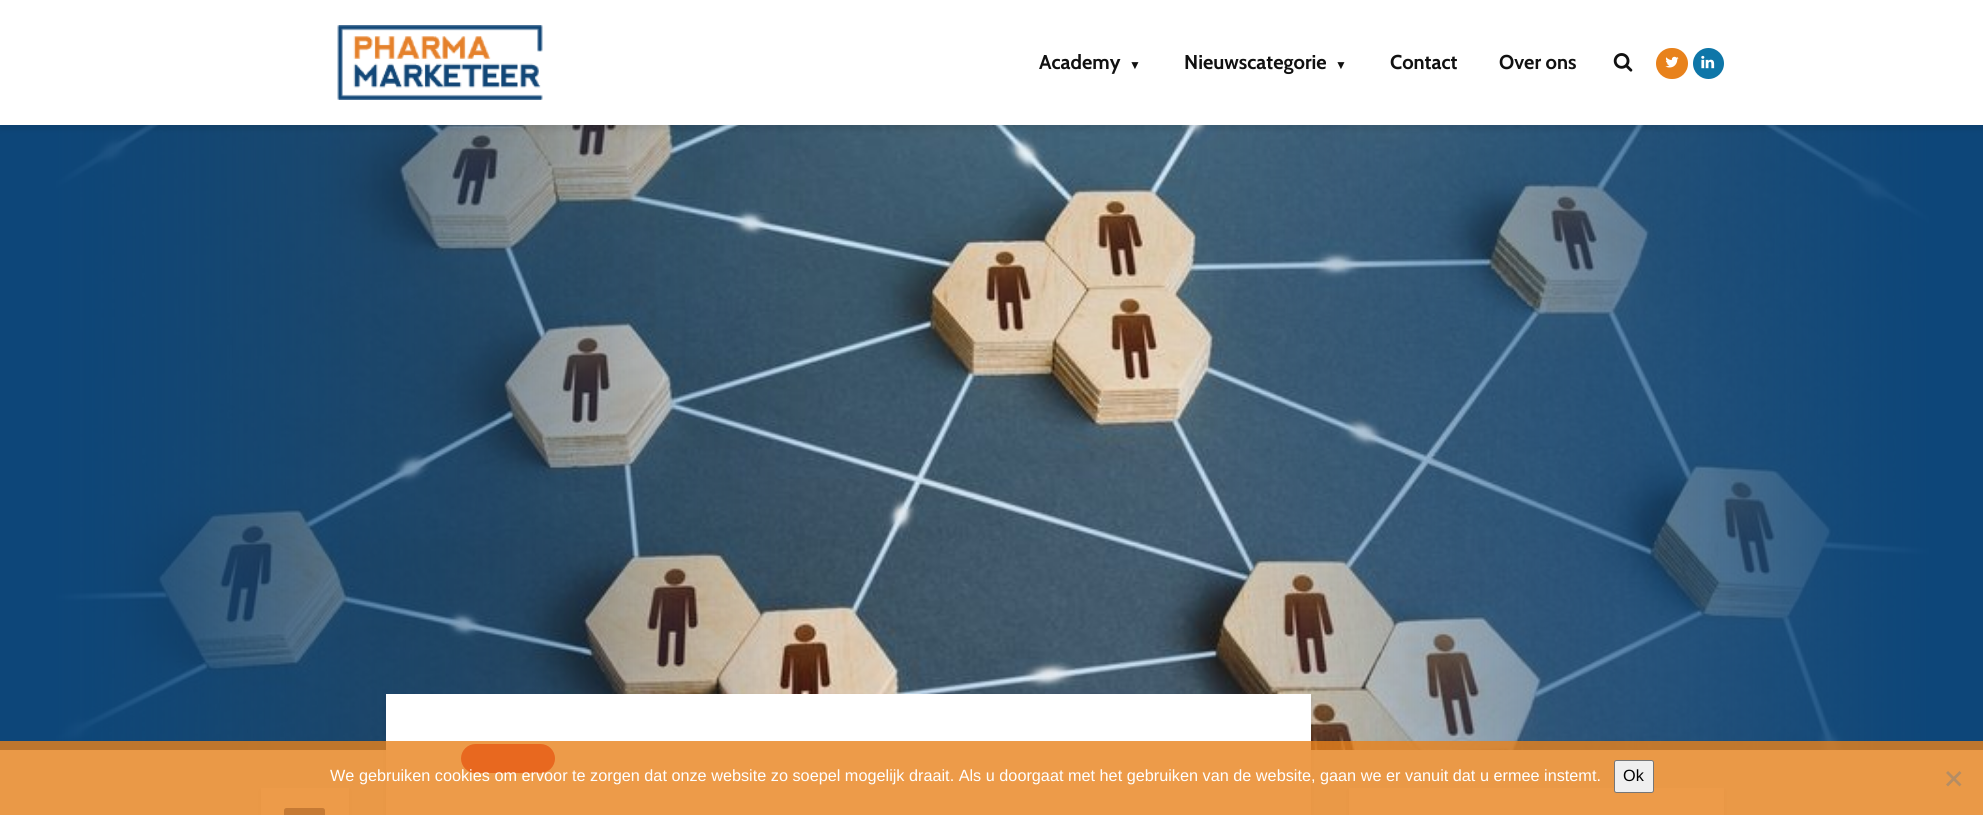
import math
import cairo


def use_color(cr, r, g, b):
  cr.set_source_rgb(r / 255, g / 255, b / 255)

def text(cr, x, y, s, family, size, color, bold=False, italic=False):
  cr.select_font_face(family, cairo.FONT_SLANT_ITALIC if italic else cairo.FONT_SLANT_NORMAL, cairo.FONT_WEIGHT_BOLD if bold else cairo.FONT_WEIGHT_NORMAL)
  cr.set_font_size(size)
  use_color(cr, *color)
  cr.move_to(x, y)
  cr.show_text(s)

def box(cr, x, y, w, h, *color):
  use_color(cr, *color)
  cr.rectangle(x, y, w, h)
  cr.fill()

def round_rect(cr, x, y, w, h, r):
  cr.new_sub_path()
  for i, (u, v) in enumerate([(x + w - r, y + h - r), (x + r, y + h - r), (x + r, y + r), (x + w - r, y + r)]):
    cr.arc(u, v, r, i * math.pi / 2, (i + 1) * math.pi / 2)
  cr.close_path()

def shadow(cr, x, y, w, h, r, blur, alpha):
  cr.push_group_with_content(cairo.CONTENT_ALPHA)
  cr.set_operator(cairo.OPERATOR_SOURCE)
  for i in range(15, -16, -2):
    e = blur * i / 6
    if min(w, h) + 2 * e > 0:
      cr.set_source_rgba(0, 0, 0, alpha * math.erfc((i - 1) / 8.5) / 2)
      round_rect(cr, x - e, y - e, w + 2 * e, h + 2 * e, max(0, min(r + e + blur * .6, min(w, h) / 2 + e)))
      cr.fill()
  cr.mask(cr.pop_group())

def picture(cr, path, x, y, w, h):
  cr.save()
  cr.set_source_surface(cairo.ImageSurface.create_from_png(path), x, y)
  cr.rectangle(x, y, w, h)
  cr.fill()
  cr.restore()

def draw(cr):
  use_color(cr, 242, 246, 247)
  cr.paint()
  box(cr, 0, 125, 1983, 625, 13, 70, 121)
  picture(cr, "img_05.png", 55, 125, 1875, 625)
  use_color(cr, 0, 1, 1)
  shadow(cr, 0, 4, 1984, 125, 0, 3, 0.1)
  box(cr, 0, 0, 1983, 125, 255, 255, 255)
  picture(cr, "img_01.png", 337, 25, 206, 75)
  picture(cr, "img_02.png", 1613, 53, 20, 19)
  use_color(cr, 232, 130, 28)
  round_rect(cr, 1656, 48, 32, 31, 15.5)
  cr.fill()
  picture(cr, "img_03.png", 1665, 56, 14, 12)
  use_color(cr, 14, 118, 168)
  cr.arc(1708.5, 63.5, 15.5, 0, 2 * math.pi)
  cr.fill()
  picture(cr, "img_04.png", 1701, 55, 14, 14)
  use_color(cr, 0, 1, 1)
  shadow(cr, 261, 791, 88, 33, 0, 3, 0.1)
  box(cr, 261, 788, 88, 27, 255, 255, 255)
  use_color(cr, 59, 89, 152)
  round_rect(cr, 284, 808, 41, 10, 2.5)
  cr.fill()
  use_color(cr, 0, 1, 1)
  shadow(cr, 386, 698, 925, 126, 0, 3, 0.1)
  box(cr, 386, 694, 925, 121, 255, 255, 255)
  use_color(cr, 229, 0, 45)
  round_rect(cr, 461, 744, 94, 29, 14.5)
  cr.fill()
  use_color(cr, 0, 1, 1)
  shadow(cr, 1349, 791, 375, 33, 0, 3, 0.1)
  box(cr, 1349, 788, 375, 27, 255, 255, 255)
  cr.set_source_rgba(0.91, 0.51, 0.11, 0.8)
  cr.rectangle(0, 741, 1983, 74)
  cr.fill()
  use_color(cr, 239, 239, 239)
  round_rect(cr, 1614.5, 760.5, 39, 32, 2)
  cr.fill_preserve()
  use_color(cr, 118, 118, 118)
  cr.set_line_width(1)
  cr.stroke()
  use_color(cr, 181, 141, 100)
  cr.new_path()
  cr.move_to(1959.5, 771)
  cr.line_to(1961.5, 773)
  cr.line_to(1948, 786.5)
  cr.line_to(1946, 784.5)
  cr.close_path()
  cr.fill()
  cr.new_path()
  cr.move_to(1946, 773)
  cr.line_to(1948, 771)
  cr.line_to(1961.5, 784.5)
  cr.line_to(1959.5, 786.5)
  cr.close_path()
  cr.fill()
  text(cr, 1039, 69, "Academy", "Cabin", 20, (17, 17, 17), bold=True)
  text(cr, 1129, 69, "▼", "Liberation Serif", 12, (17, 17, 17), bold=True)
  text(cr, 1184, 69, "Nieuwscategorie", "Cabin", 20, (17, 17, 17), bold=True)
  text(cr, 1335, 69, "▼", "Liberation Serif", 12, (17, 17, 17), bold=True)
  text(cr, 1390, 69, "Contact", "Cabin", 20, (17, 17, 17), bold=True)
  text(cr, 1499, 69, "Over ons", "Cabin", 20, (17, 17, 17), bold=True)
  text(cr, 330, 781, "We gebruiken cookies om ervoor te zorgen dat onze website zo soepel mogelijk draait. Als u doorgaat met het gebruiken van de website, gaan we er vanuit dat u ermee instemt.", "Liberation Sans", 16.25, (255, 255, 255))
  text(cr, 1623, 781, "Ok", "Liberation Sans", 16.25, (0, 0, 0))


surface = cairo.ImageSurface(cairo.FORMAT_RGB24, 1983, 815)
cr = cairo.Context(surface)
options = cairo.FontOptions()
options.set_hint_metrics(cairo.HINT_METRICS_OFF)
options.set_hint_style(cairo.HINT_STYLE_NONE)
cr.set_font_options(options)
cr.set_miter_limit(4)
draw(cr)
surface.write_to_png("out.png")
